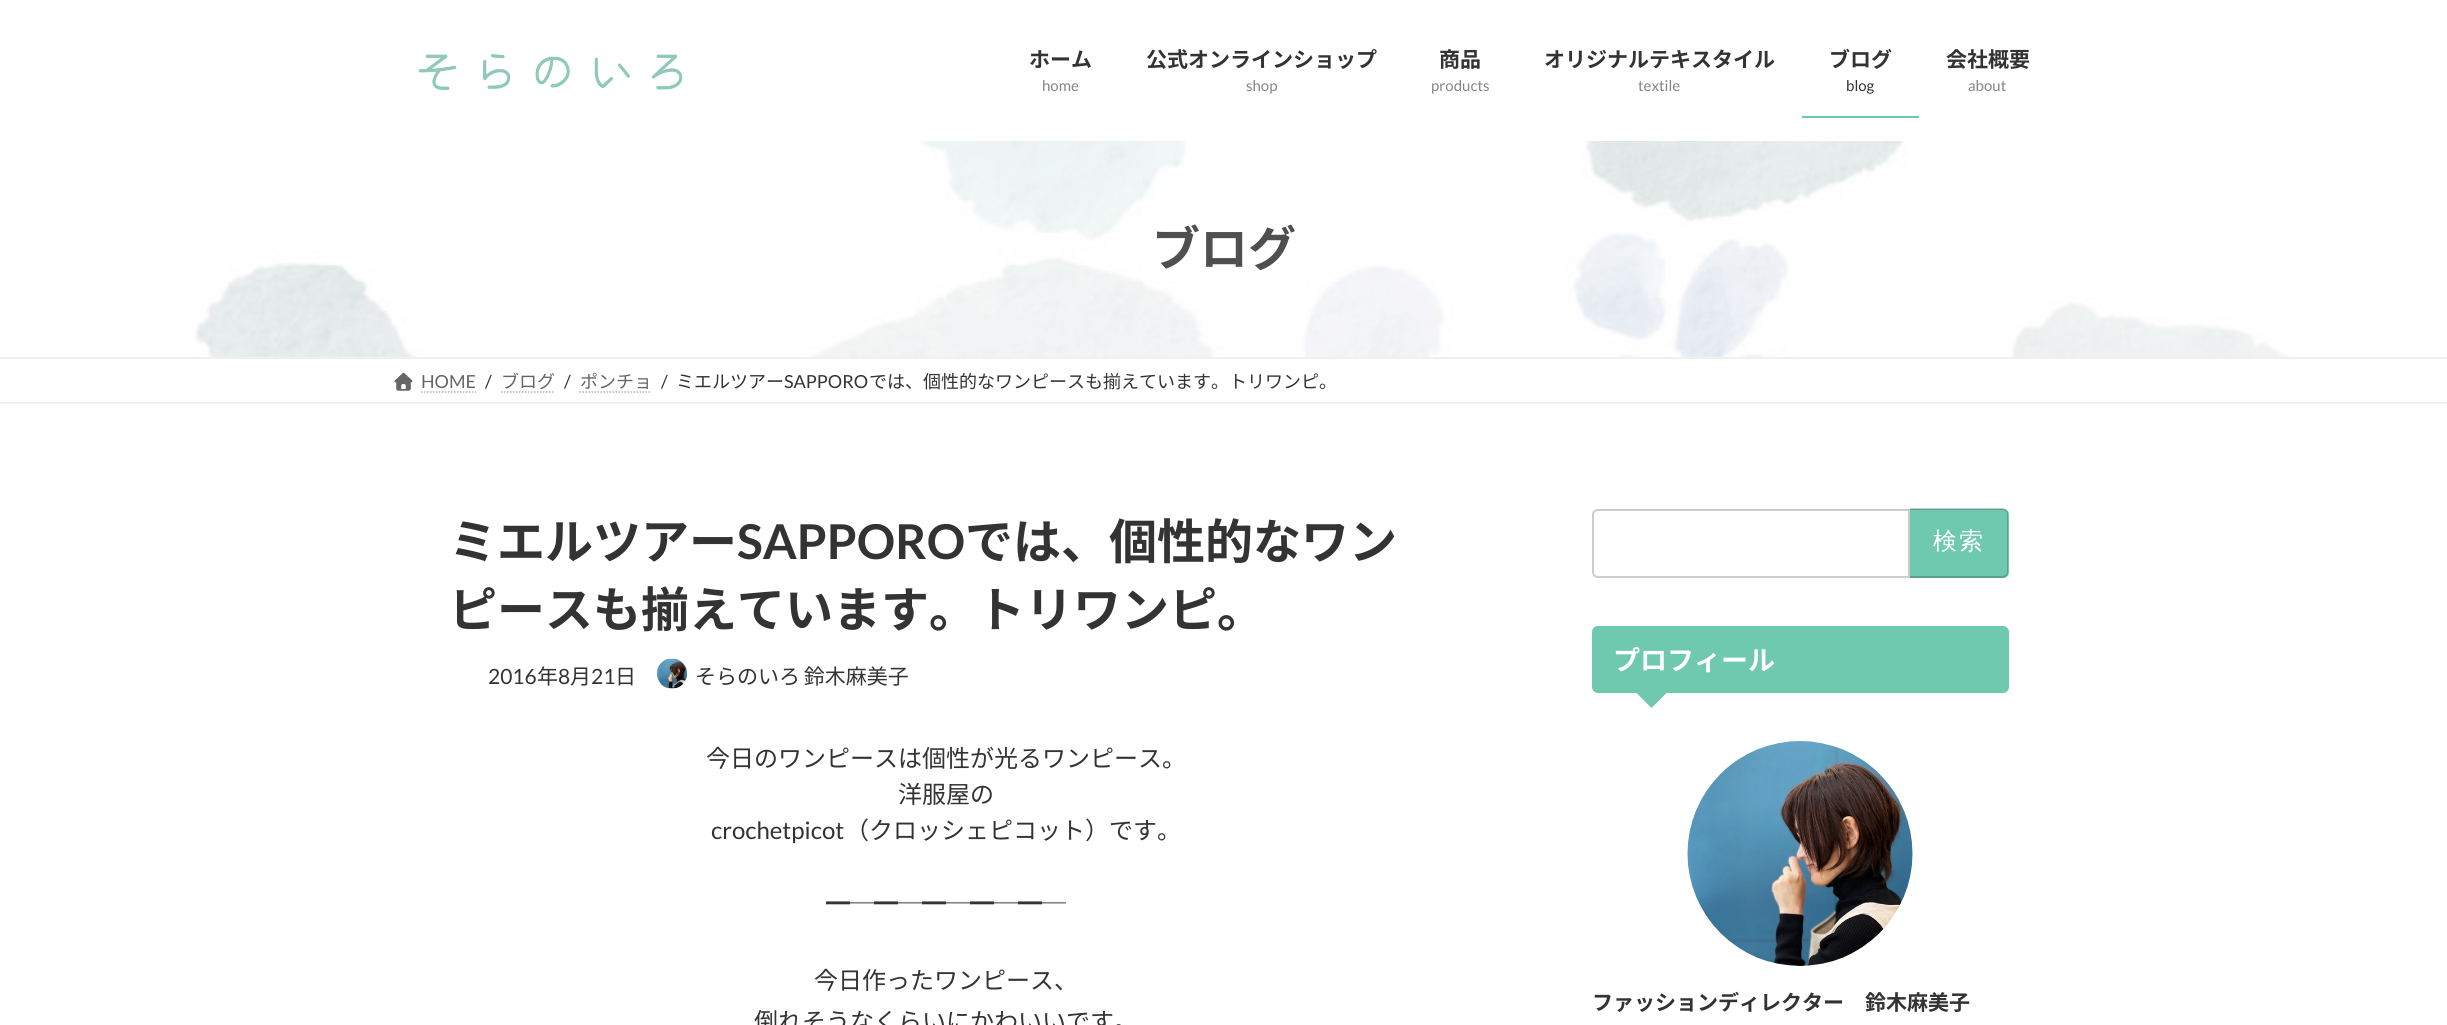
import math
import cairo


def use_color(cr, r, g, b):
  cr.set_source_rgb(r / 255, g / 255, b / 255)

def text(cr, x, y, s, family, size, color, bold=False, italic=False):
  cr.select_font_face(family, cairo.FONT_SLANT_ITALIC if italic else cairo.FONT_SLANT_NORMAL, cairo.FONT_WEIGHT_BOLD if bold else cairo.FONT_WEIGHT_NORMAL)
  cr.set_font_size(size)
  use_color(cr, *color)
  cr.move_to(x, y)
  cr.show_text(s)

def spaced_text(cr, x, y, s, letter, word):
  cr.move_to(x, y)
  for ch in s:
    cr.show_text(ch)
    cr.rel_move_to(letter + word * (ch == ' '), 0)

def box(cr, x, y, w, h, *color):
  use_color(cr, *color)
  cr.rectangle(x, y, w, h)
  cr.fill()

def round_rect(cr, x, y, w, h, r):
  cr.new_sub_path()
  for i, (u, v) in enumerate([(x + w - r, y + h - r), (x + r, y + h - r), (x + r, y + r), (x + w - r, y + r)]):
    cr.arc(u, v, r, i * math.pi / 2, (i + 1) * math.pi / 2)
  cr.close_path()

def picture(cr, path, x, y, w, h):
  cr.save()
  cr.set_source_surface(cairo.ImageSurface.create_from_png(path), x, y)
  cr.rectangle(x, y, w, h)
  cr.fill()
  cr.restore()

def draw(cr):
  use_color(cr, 255, 255, 255)
  cr.paint()
  picture(cr, "img_01.png", 418, 54, 265, 36)
  box(cr, 1802, 116, 117, 2, 110, 201, 175)
  picture(cr, "img_02.png", 195, 141, 2094, 216)
  box(cr, 0, 357, 2447, 2, 240, 240, 240)
  box(cr, 0, 402, 2447, 2, 240, 240, 240)
  picture(cr, "img_03.png", 394, 372, 19, 19)
  cr.new_path()
  cr.move_to(421, 392)
  cr.line_to(476, 392)
  use_color(cr, 179, 179, 179)
  cr.set_line_width(1.5)
  cr.set_dash([1.5, 1.5])
  cr.stroke()
  cr.new_path()
  cr.move_to(501, 392)
  cr.line_to(555, 392)
  cr.stroke()
  cr.new_path()
  cr.move_to(579.5, 392)
  cr.line_to(651.5, 392)
  cr.stroke()
  picture(cr, "img_04.png", 657, 658, 30, 31)
  cr.new_path()
  cr.move_to(1598, 510)
  cr.line_to(1909, 510)
  cr.line_to(1909, 577)
  cr.line_to(1598, 577)
  cr.curve_to(1595, 577, 1593, 575, 1593, 572)
  cr.line_to(1593, 515)
  cr.curve_to(1593, 512, 1595, 510, 1598, 510)
  cr.close_path()
  use_color(cr, 204, 204, 204)
  cr.set_line_width(2)
  cr.set_dash([])
  cr.stroke()
  use_color(cr, 110, 201, 175)
  cr.new_path()
  cr.move_to(1910, 509)
  cr.line_to(2003, 509)
  cr.curve_to(2006.5, 509, 2009, 511.5, 2009, 515)
  cr.line_to(2009, 572)
  cr.curve_to(2009, 575.5, 2006.5, 578, 2003, 578)
  cr.line_to(1910, 578)
  cr.close_path()
  cr.fill()
  cr.set_source_rgba(0, 0, 0, 0.2)
  cr.set_fill_rule(cairo.FILL_RULE_EVEN_ODD)
  cr.new_path()
  cr.move_to(1910, 508)
  cr.line_to(2002, 508)
  cr.curve_to(2006, 508, 2008, 511, 2008, 514)
  cr.line_to(2008, 572)
  cr.curve_to(2008, 575, 2006, 578, 2002, 578)
  cr.line_to(1910, 578)
  cr.close_path()
  cr.move_to(1910, 510)
  cr.line_to(2002, 510)
  cr.curve_to(2005, 510, 2007, 512, 2007, 514)
  cr.line_to(2007, 572)
  cr.curve_to(2007, 574, 2005, 576, 2002, 576)
  cr.line_to(1910, 576)
  cr.close_path()
  cr.fill()
  use_color(cr, 110, 201, 175)
  round_rect(cr, 1592, 626, 417, 67, 6)
  cr.fill()
  cr.set_fill_rule(cairo.FILL_RULE_WINDING)
  cr.new_path()
  cr.move_to(1636.5, 693)
  cr.line_to(1666.5, 693)
  cr.line_to(1651.5, 708)
  cr.close_path()
  cr.fill()
  picture(cr, "img_05.png", 1687, 741, 226, 225)
  text(cr, 1029, 67, "ホーム", "Noto Sans JP", 21, (51, 51, 51), bold=True)
  text(cr, 1042, 91, "home", "Lato", 15, (133, 133, 133))
  text(cr, 1146, 67, "公式オンラインショップ", "Noto Sans JP", 21, (51, 51, 51), bold=True)
  text(cr, 1246, 91, "shop", "Lato", 15, (133, 133, 133))
  text(cr, 1439, 67, "商品", "Noto Sans JP", 21, (51, 51, 51), bold=True)
  text(cr, 1431, 91, "products", "Lato", 15, (133, 133, 133))
  text(cr, 1544, 67, "オリジナルテキスタイル", "Noto Sans JP", 21, (51, 51, 51), bold=True)
  text(cr, 1638, 91, "textile", "Lato", 15, (133, 133, 133))
  text(cr, 1829, 67, "ブログ", "Noto Sans JP", 21, (51, 51, 51), bold=True)
  text(cr, 1846, 91, "blog", "Lato", 15, (51, 51, 51))
  text(cr, 1946, 67, "会社概要", "Noto Sans JP", 21, (51, 51, 51), bold=True)
  text(cr, 1968, 91, "about", "Lato", 15, (133, 133, 133))
  text(cr, 1152, 266, "ブログ", "Noto Sans JP", 48, (79, 79, 79), bold=True)
  text(cr, 421, 388, "HOME", "Lato", 18, (102, 102, 102))
  text(cr, 485, 388, "/", "Lato", 18, (51, 51, 51))
  text(cr, 501, 388, "ブログ", "Noto Sans JP", 18, (102, 102, 102))
  text(cr, 564, 388, "/", "Lato", 18, (51, 51, 51))
  text(cr, 580, 388, "ポンチョ", "Noto Sans JP", 18, (102, 102, 102))
  text(cr, 661, 388, "/", "Lato", 18, (51, 51, 51))
  text(cr, 676, 388, "ミエルツアー", "Noto Sans JP", 18, (51, 51, 51))
  text(cr, 784, 388, "SAPPORO", "Lato", 18, (51, 51, 51))
  text(cr, 869, 388, "では、個性的なワンピースも揃えています。トリワンピ。", "Noto Sans JP", 18, (51, 51, 51))
  text(cr, 449, 559, "ミエルツアー", "Noto Sans JP", 48, (51, 51, 51), bold=True)
  text(cr, 737, 559, "SAPPORO", "Lato", 48, (51, 51, 51), bold=True)
  text(cr, 965, 559, "では、個性的なワン", "Noto Sans JP", 48, (51, 51, 51), bold=True)
  text(cr, 449, 627, "ピースも揃えています。トリワンピ。", "Noto Sans JP", 48, (51, 51, 51), bold=True)
  text(cr, 488, 684, "2016", "Lato", 21, (51, 51, 51))
  text(cr, 537, 684, "年", "Noto Sans JP", 21, (51, 51, 51))
  text(cr, 558, 684, "8", "Lato", 21, (51, 51, 51))
  text(cr, 570, 684, "月", "Noto Sans JP", 21, (51, 51, 51))
  text(cr, 591, 684, "21", "Lato", 21, (51, 51, 51))
  text(cr, 615, 684, "日", "Noto Sans JP", 21, (51, 51, 51))
  spaced_text(cr, 695, 684, "そらのいろ 鈴木麻美子", 0, -1)
  text(cr, 706, 767, "今日のワンピースは個性が光るワンピース。", "Noto Sans JP", 24, (51, 51, 51))
  text(cr, 898, 803, "洋服屋の", "Noto Sans JP", 24, (51, 51, 51))
  text(cr, 711, 839, "crochetpicot", "Lato", 24, (51, 51, 51))
  text(cr, 845, 839, "（クロッシェピコット）です。", "Noto Sans JP", 24, (51, 51, 51))
  text(cr, 826, 912, "━─━─━─━─━─", "Noto Sans JP", 24, (51, 51, 51))
  text(cr, 814, 989, "今日作ったワンピース、", "Noto Sans JP", 24, (51, 51, 51))
  text(cr, 754, 1030, "倒れそうなくらいにかわいいです。", "Noto Sans JP", 24, (51, 51, 51))
  cr.select_font_face("WenQuanYi Zen Hei Medium")
  use_color(cr, 255, 255, 255)
  spaced_text(cr, 1933, 549, "検索", 2, 0)
  text(cr, 1613, 670, "プロフィール", "Noto Sans JP", 27, (255, 255, 255), bold=True)
  text(cr, 1592, 1010, "ファッションディレクター　鈴木麻美子", "Noto Sans JP", 21, (51, 51, 51), bold=True)


surface = cairo.ImageSurface(cairo.FORMAT_RGB24, 2447, 1025)
cr = cairo.Context(surface)
options = cairo.FontOptions()
options.set_hint_metrics(cairo.HINT_METRICS_OFF)
options.set_hint_style(cairo.HINT_STYLE_NONE)
cr.set_font_options(options)
cr.set_miter_limit(4)
draw(cr)
surface.write_to_png("out.png")
